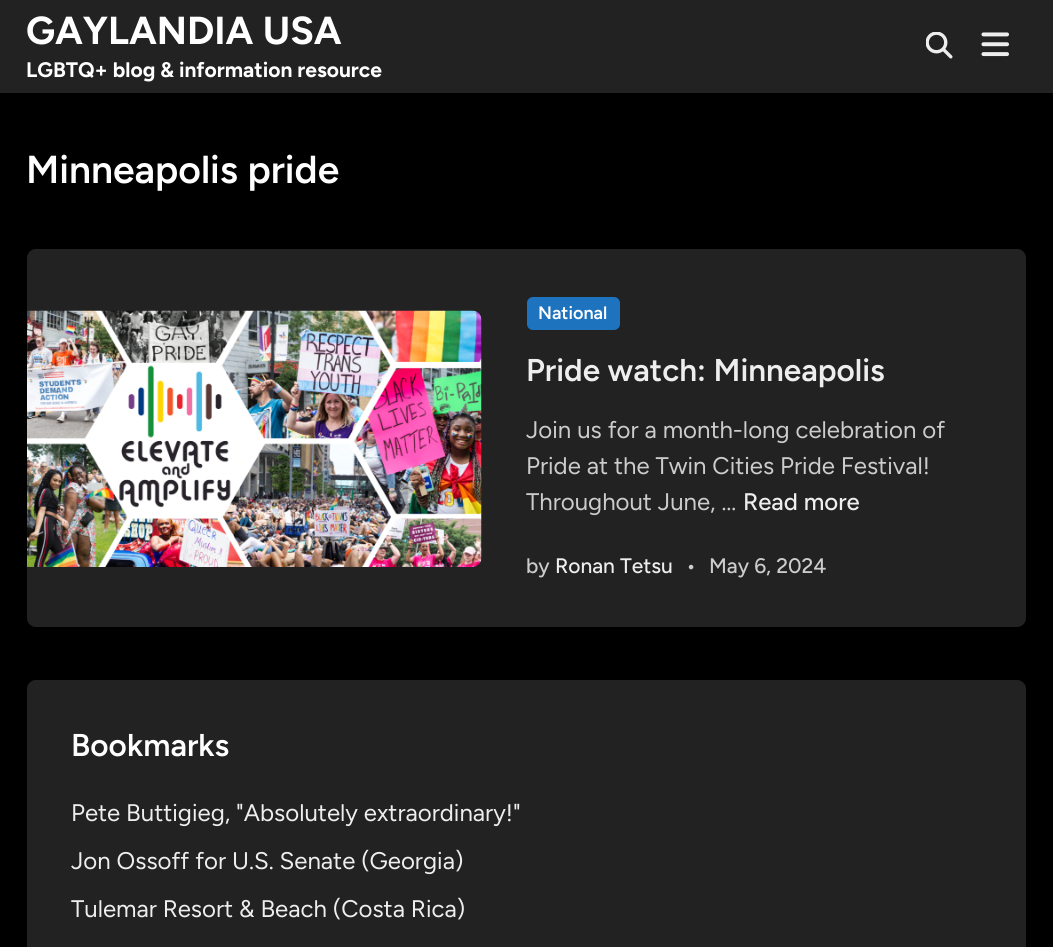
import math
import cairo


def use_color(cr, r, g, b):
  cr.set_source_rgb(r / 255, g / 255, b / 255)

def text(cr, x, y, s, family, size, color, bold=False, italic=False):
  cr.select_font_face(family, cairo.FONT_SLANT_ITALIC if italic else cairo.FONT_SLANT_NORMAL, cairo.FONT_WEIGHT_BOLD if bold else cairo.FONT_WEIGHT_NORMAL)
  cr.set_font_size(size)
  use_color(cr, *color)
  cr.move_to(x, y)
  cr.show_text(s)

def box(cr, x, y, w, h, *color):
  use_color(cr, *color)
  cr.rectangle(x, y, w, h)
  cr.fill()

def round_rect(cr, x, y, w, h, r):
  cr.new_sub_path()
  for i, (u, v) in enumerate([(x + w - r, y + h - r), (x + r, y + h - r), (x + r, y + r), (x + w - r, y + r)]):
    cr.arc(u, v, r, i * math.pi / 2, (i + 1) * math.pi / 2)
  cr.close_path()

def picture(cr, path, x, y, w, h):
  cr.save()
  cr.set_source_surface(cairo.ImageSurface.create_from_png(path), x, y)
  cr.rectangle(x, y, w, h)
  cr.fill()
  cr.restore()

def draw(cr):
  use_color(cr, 0, 0, 0)
  cr.paint()
  box(cr, 0, 0, 1053, 93, 34, 34, 34)
  picture(cr, "img_01.png", 926, 32, 27, 27)
  picture(cr, "img_02.png", 981, 32, 28, 25)
  round_rect(cr, 27, 249, 999, 378, 9)
  cr.fill()
  picture(cr, "img_03.png", 27, 310, 455, 257)
  use_color(cr, 30, 115, 190)
  round_rect(cr, 527, 297, 93, 33, 6)
  cr.fill()
  use_color(cr, 34, 34, 34)
  round_rect(cr, 27, 680, 999, 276, 9)
  cr.fill()
  text(cr, 26, 44, "GAYLANDIA USA", "Figtree", 39, (255, 255, 255), bold=True)
  text(cr, 26, 77, "LGBTQ+ blog & information resource", "Figtree", 21, (255, 255, 255), bold=True)
  text(cr, 26, 183, "Minneapolis pride", "Figtree SemiBold", 39, (255, 255, 255))
  text(cr, 538, 319, "National", "Figtree SemiBold", 18, (255, 255, 255))
  text(cr, 526, 381, "Pride watch: Minneapolis", "Figtree SemiBold", 31.5, (238, 238, 238))
  text(cr, 526, 438, "Join us for a month-long celebration of", "Figtree", 24, (204, 204, 204))
  text(cr, 526, 474, "Pride at the Twin Cities Pride Festival!", "Figtree", 24, (204, 204, 204))
  text(cr, 526, 510, "Throughout June, …", "Figtree", 24, (204, 204, 204))
  text(cr, 743, 510, "Read more", "Figtree Medium", 24, (238, 238, 238))
  text(cr, 526, 573, "by", "Figtree Medium", 21, (204, 204, 204))
  text(cr, 555, 573, "Ronan Tetsu", "Figtree Medium", 21, (238, 238, 238))
  text(cr, 686, 573, "•", "Figtree Medium", 21, (204, 204, 204))
  text(cr, 709, 573, "May 6, 2024", "Figtree Medium", 21, (204, 204, 204))
  text(cr, 71, 756, "Bookmarks", "Figtree SemiBold", 31.5, (255, 255, 255))
  text(cr, 71, 821, "Pete Buttigieg, \"Absolutely extraordinary!\"", "Figtree", 24, (238, 238, 238))
  text(cr, 71, 869, "Jon Ossoff for U.S. Senate (Georgia)", "Figtree", 24, (238, 238, 238))
  text(cr, 71, 917, "Tulemar Resort & Beach (Costa Rica)", "Figtree", 24, (238, 238, 238))


surface = cairo.ImageSurface(cairo.FORMAT_RGB24, 1053, 947)
cr = cairo.Context(surface)
options = cairo.FontOptions()
options.set_hint_metrics(cairo.HINT_METRICS_OFF)
options.set_hint_style(cairo.HINT_STYLE_NONE)
cr.set_font_options(options)
cr.set_miter_limit(4)
draw(cr)
surface.write_to_png("out.png")
